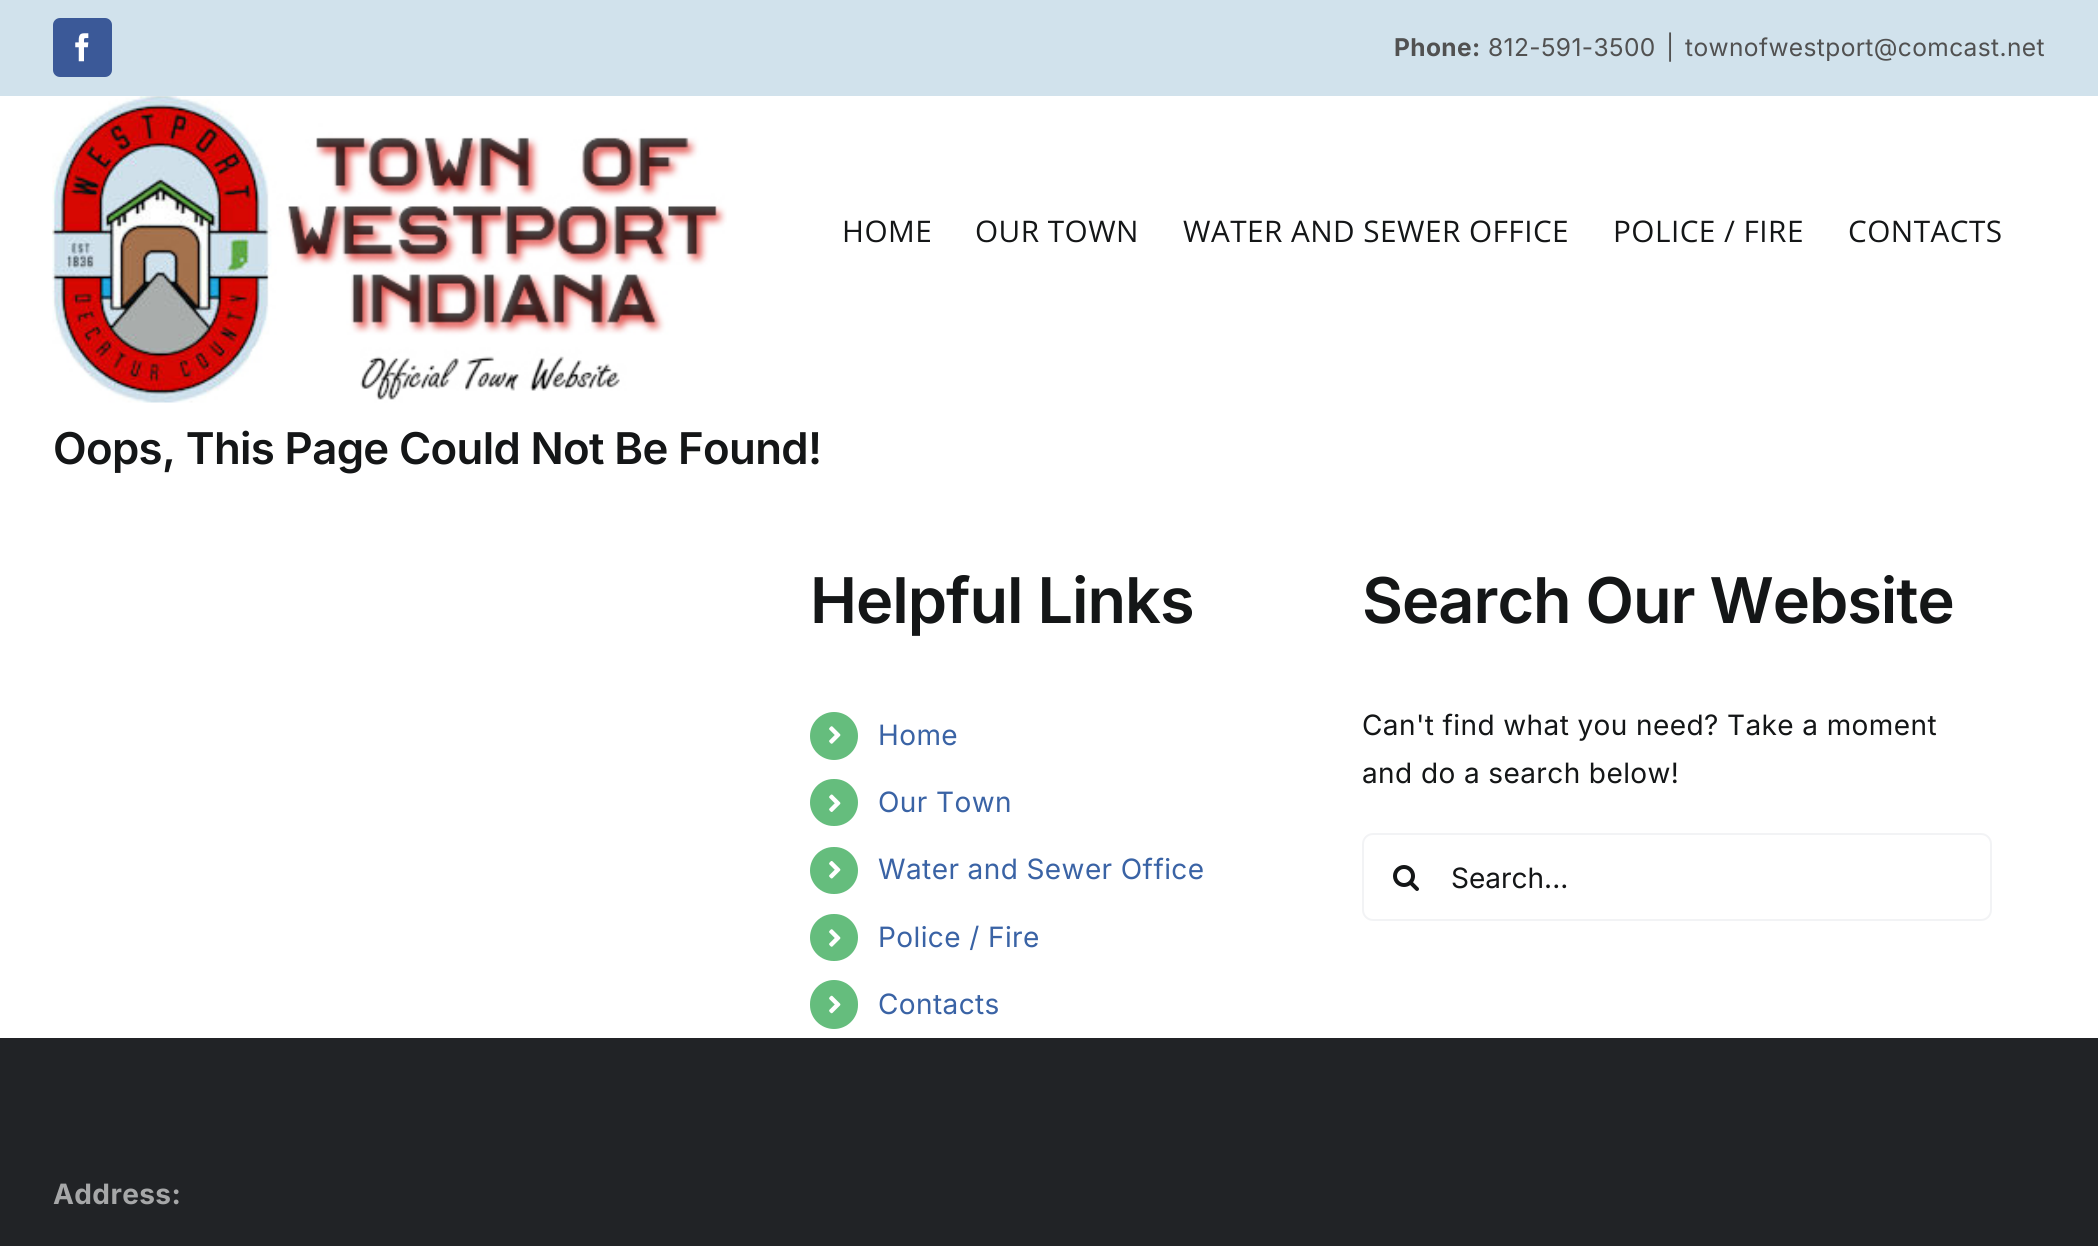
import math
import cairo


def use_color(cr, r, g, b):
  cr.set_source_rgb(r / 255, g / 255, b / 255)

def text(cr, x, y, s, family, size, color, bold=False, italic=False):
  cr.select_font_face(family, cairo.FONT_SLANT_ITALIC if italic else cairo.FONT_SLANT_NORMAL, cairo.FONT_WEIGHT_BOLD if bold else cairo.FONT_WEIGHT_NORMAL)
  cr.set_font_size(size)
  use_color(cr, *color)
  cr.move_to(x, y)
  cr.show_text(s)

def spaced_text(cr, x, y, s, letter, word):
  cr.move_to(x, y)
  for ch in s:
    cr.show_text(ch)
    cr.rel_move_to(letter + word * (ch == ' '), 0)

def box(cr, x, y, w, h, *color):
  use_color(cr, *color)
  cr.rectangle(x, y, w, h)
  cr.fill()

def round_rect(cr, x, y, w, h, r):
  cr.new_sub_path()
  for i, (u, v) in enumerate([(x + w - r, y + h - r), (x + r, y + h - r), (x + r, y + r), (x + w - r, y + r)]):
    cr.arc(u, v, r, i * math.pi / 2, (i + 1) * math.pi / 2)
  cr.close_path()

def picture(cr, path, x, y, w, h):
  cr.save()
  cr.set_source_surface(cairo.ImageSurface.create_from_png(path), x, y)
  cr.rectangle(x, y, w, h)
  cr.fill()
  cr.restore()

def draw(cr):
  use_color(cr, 255, 255, 255)
  cr.paint()
  box(cr, 0, 0, 2098, 96, 209, 226, 236)
  use_color(cr, 59, 89, 152)
  round_rect(cr, 54, 19, 57, 57, 6)
  cr.fill_preserve()
  cr.stroke()
  picture(cr, "img_01.png", 75, 33, 14, 29)
  picture(cr, "img_02.png", 52, 96, 675, 307)
  use_color(cr, 101, 189, 125)
  cr.arc(834, 736, 24, 0, 2 * math.pi)
  cr.fill()
  picture(cr, "img_03.png", 829, 726, 12, 18)
  round_rect(cr, 810, 779, 48, 47, 23.5)
  cr.fill()
  picture(cr, "img_04.png", 829, 794, 12, 18)
  round_rect(cr, 810, 847, 48, 47, 23.5)
  cr.fill()
  picture(cr, "img_05.png", 829, 861, 12, 18)
  round_rect(cr, 810, 914, 48, 47, 23.5)
  cr.fill()
  picture(cr, "img_03.png", 829, 929, 12, 18)
  round_rect(cr, 810, 980, 48, 49, 24)
  cr.fill()
  picture(cr, "img_06.png", 829, 995, 12, 19)
  round_rect(cr, 1363, 834, 628, 86, 10)
  use_color(cr, 242, 243, 245)
  cr.stroke()
  picture(cr, "img_07.png", 1393, 865, 26, 26)
  box(cr, 0, 1038, 2098, 208, 33, 35, 38)
  cr.select_font_face("Inter", cairo.FONT_SLANT_NORMAL, cairo.FONT_WEIGHT_BOLD)
  cr.set_font_size(24.5)
  use_color(cr, 81, 81, 81)
  spaced_text(cr, 1394, 56, "Phone:", 0.4, 0)
  cr.select_font_face("Inter")
  spaced_text(cr, 1488, 56, "812-591-3500", 0.4, 0)
  spaced_text(cr, 1666, 56, "|", 0.4, 0)
  spaced_text(cr, 1685, 56, "townofwestport@comcast.net", 0.4, 0)
  cr.select_font_face("Open Sans")
  cr.set_font_size(29.75)
  use_color(cr, 20, 22, 23)
  spaced_text(cr, 842, 242, "HOME", 0.45, 0)
  spaced_text(cr, 975, 242, "OUR TOWN", 0.45, 0)
  spaced_text(cr, 1183, 242, "WATER AND SEWER OFFICE", 0.45, 0)
  spaced_text(cr, 1613, 242, "POLICE / FIRE", 0.45, 0)
  spaced_text(cr, 1848, 242, "CONTACTS", 0.45, 0)
  cr.select_font_face("Inter SemiBold")
  cr.set_font_size(43.75)
  spaced_text(cr, 53, 464, "Oops, This Page Could Not Be Found!", -0.65, 0)
  cr.set_font_size(63)
  spaced_text(cr, 810, 623, "Helpful Links", -1, 0)
  cr.select_font_face("Inter")
  cr.set_font_size(28)
  use_color(cr, 58, 99, 165)
  spaced_text(cr, 878, 745, "Home", 0.4, 0)
  spaced_text(cr, 878, 812, "Our Town", 0.4, 0)
  spaced_text(cr, 878, 879, "Water and Sewer Office", 0.4, 0)
  spaced_text(cr, 878, 947, "Police / Fire", 0.4, 0)
  spaced_text(cr, 878, 1014, "Contacts", 0.4, 0)
  cr.select_font_face("Inter SemiBold")
  cr.set_font_size(63)
  use_color(cr, 20, 22, 23)
  spaced_text(cr, 1362, 623, "Search Our Website", -1, 0)
  cr.select_font_face("Inter")
  cr.set_font_size(28)
  spaced_text(cr, 1362, 735, "Can't find what you need? Take a moment", 0.4, 0)
  spaced_text(cr, 1362, 783, "and do a search below!", 0.4, 0)
  text(cr, 1451, 888, "Search...", "Inter", 28, (20, 22, 23))
  cr.select_font_face("Inter", cairo.FONT_SLANT_NORMAL, cairo.FONT_WEIGHT_BOLD)
  use_color(cr, 166, 167, 168)
  spaced_text(cr, 53, 1204, "Address:", 0.4, 0)


surface = cairo.ImageSurface(cairo.FORMAT_RGB24, 2098, 1246)
cr = cairo.Context(surface)
options = cairo.FontOptions()
options.set_hint_metrics(cairo.HINT_METRICS_OFF)
options.set_hint_style(cairo.HINT_STYLE_NONE)
cr.set_font_options(options)
cr.set_miter_limit(4)
draw(cr)
surface.write_to_png("out.png")
